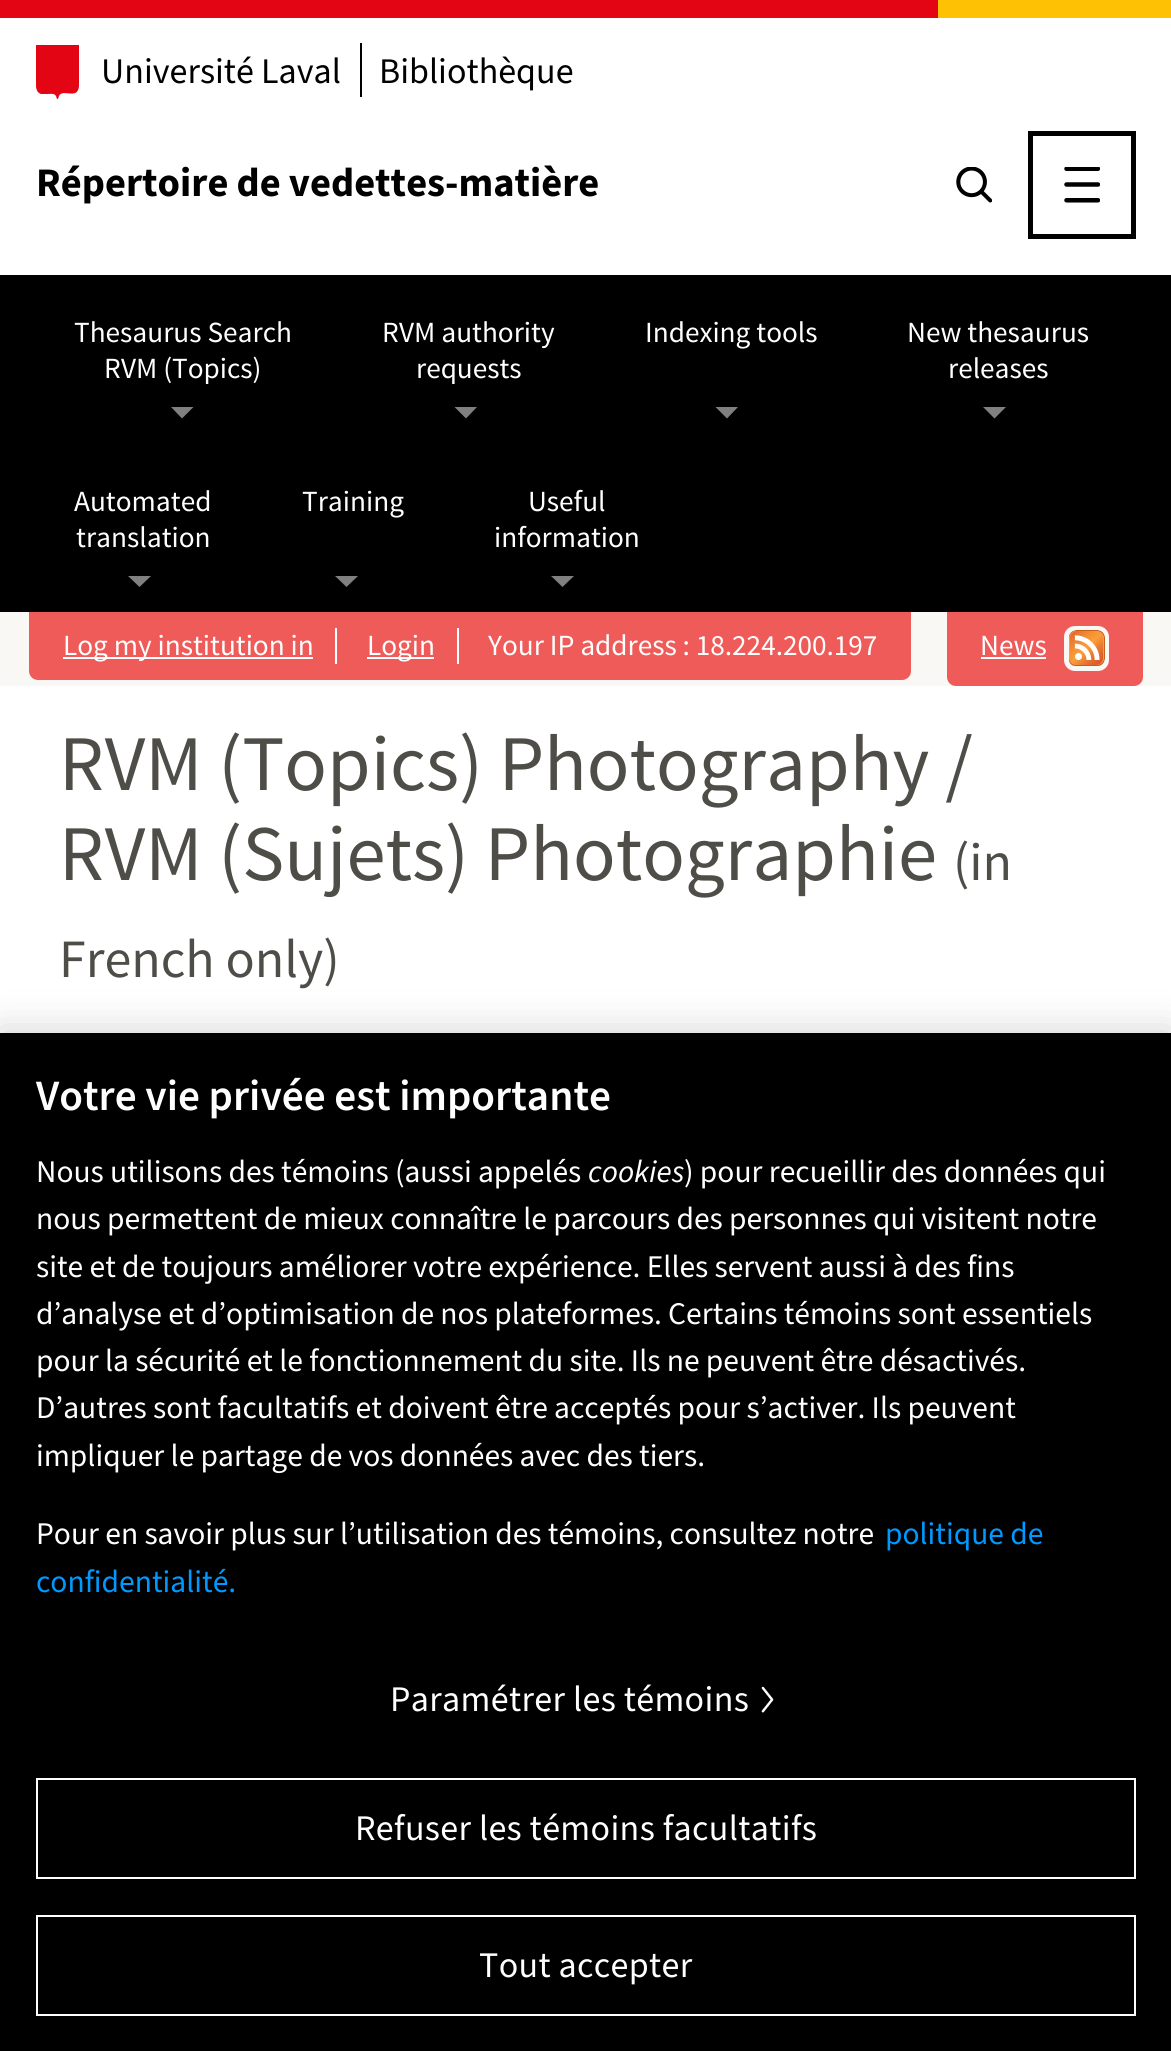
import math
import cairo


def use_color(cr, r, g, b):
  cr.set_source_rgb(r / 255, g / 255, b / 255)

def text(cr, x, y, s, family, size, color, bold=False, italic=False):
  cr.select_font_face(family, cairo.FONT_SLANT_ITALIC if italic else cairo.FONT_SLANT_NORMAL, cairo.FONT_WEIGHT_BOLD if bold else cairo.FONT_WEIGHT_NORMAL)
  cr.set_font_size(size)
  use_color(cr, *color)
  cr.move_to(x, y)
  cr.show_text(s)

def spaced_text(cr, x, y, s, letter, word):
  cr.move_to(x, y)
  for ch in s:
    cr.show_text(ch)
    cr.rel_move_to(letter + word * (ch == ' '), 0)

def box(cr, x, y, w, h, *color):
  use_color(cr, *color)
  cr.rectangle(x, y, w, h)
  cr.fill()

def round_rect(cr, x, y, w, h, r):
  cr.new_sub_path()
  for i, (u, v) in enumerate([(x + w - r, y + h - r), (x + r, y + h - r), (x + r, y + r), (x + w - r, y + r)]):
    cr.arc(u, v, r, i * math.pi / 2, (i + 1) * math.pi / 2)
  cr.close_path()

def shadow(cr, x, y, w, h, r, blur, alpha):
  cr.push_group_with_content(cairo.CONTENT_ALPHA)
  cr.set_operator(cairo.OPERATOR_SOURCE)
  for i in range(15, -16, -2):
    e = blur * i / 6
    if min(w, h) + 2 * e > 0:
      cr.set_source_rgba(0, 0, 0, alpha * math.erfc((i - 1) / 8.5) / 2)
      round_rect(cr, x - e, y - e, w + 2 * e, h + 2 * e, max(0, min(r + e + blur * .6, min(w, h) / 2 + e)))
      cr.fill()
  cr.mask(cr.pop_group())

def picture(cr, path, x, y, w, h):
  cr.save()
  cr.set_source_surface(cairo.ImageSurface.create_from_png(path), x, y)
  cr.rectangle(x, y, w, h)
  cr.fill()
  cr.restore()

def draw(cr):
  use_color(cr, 255, 255, 255)
  cr.paint()
  box(cr, 0, 275, 1171, 337, 0, 0, 0)
  use_color(cr, 0, 0, 0)
  shadow(cr, 0, 2, 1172, 275, 0, 8, 0.15)
  box(cr, 0, 0, 938, 18, 227, 5, 19)
  box(cr, 938, 0, 233, 18, 255, 193, 3)
  box(cr, 0, 18, 1171, 257, 255, 255, 255)
  cr.save()
  cr.rectangle(36, 45, 43, 54)
  cr.clip()
  use_color(cr, 227, 5, 19)
  cr.new_path()
  cr.move_to(36, 45)
  cr.line_to(36, 80)
  cr.curve_to(36, 85, 35, 92, 41, 94)
  cr.line_to(47, 94)
  cr.curve_to(51, 94, 54, 93, 56, 96)
  cr.line_to(57, 99)
  cr.curve_to(58, 100, 59, 96, 59, 96)
  cr.curve_to(62, 89, 75, 98, 78, 90)
  cr.curve_to(80, 86, 79, 78, 79, 73)
  cr.line_to(79, 45)
  cr.close_path()
  cr.fill()
  cr.restore()
  box(cr, 360, 43, 2, 54, 0, 0, 0)
  picture(cr, "img_01.png", 956, 167, 36, 36)
  cr.rectangle(1030.5, 133.5, 103, 103)
  cr.set_line_width(5)
  cr.stroke()
  picture(cr, "img_02.png", 1064, 167, 36, 36)
  use_color(cr, 128, 128, 128)
  cr.new_path()
  cr.move_to(171, 407)
  cr.line_to(193.5, 407)
  cr.line_to(182, 418.5)
  cr.close_path()
  cr.fill()
  cr.new_path()
  cr.move_to(454.5, 407)
  cr.line_to(477, 407)
  cr.line_to(466, 418.5)
  cr.close_path()
  cr.fill()
  cr.new_path()
  cr.move_to(715.5, 407)
  cr.line_to(738, 407)
  cr.line_to(727, 418.5)
  cr.close_path()
  cr.fill()
  cr.new_path()
  cr.move_to(983, 407)
  cr.line_to(1006, 407)
  cr.line_to(994.5, 418.5)
  cr.close_path()
  cr.fill()
  cr.new_path()
  cr.move_to(128, 576)
  cr.line_to(151, 576)
  cr.line_to(139.5, 587)
  cr.close_path()
  cr.fill()
  cr.new_path()
  cr.move_to(335, 576)
  cr.line_to(358, 576)
  cr.line_to(346.5, 587)
  cr.close_path()
  cr.fill()
  cr.new_path()
  cr.move_to(551, 576)
  cr.line_to(574, 576)
  cr.line_to(562.5, 587)
  cr.close_path()
  cr.fill()
  box(cr, 0, 612, 1171, 74, 250, 248, 245)
  use_color(cr, 238, 91, 88)
  cr.new_path()
  cr.move_to(29, 612)
  cr.line_to(911, 612)
  cr.line_to(911, 671)
  cr.curve_to(911, 676, 907, 680, 902, 680)
  cr.line_to(38, 680)
  cr.curve_to(33, 680, 29, 676, 29, 671)
  cr.close_path()
  cr.fill()
  box(cr, 335, 628, 2, 36, 255, 255, 255)
  box(cr, 63, 657, 250, 2, 255, 255, 255)
  box(cr, 457, 628, 2, 36, 255, 255, 255)
  box(cr, 367, 657, 67, 2, 255, 255, 255)
  use_color(cr, 238, 91, 88)
  cr.new_path()
  cr.move_to(947, 612)
  cr.line_to(1143, 612)
  cr.line_to(1143, 677)
  cr.curve_to(1143, 682, 1139, 686, 1134, 686)
  cr.line_to(956, 686)
  cr.curve_to(951, 686, 947, 682, 947, 677)
  cr.close_path()
  cr.fill()
  round_rect(cr, 1066.5, 628.5, 40, 40, 8.5)
  use_color(cr, 250, 248, 245)
  cr.stroke()
  box(cr, 981, 657, 65, 2, 255, 255, 255)
  picture(cr, "img_03.png", 1069, 630, 36, 36)
  use_color(cr, 0, 0, 0)
  shadow(cr, 0, 1033, 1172, 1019, 0, 20, 0.2)
  box(cr, 0, 1033, 1171, 1018, 0, 0, 0)
  picture(cr, "img_04.png", 761, 1686, 13, 27)
  cr.rectangle(37, 1779, 1098, 99)
  use_color(cr, 255, 255, 255)
  cr.set_line_width(2)
  cr.stroke()
  cr.rectangle(37, 1916, 1098, 99)
  cr.stroke()
  text(cr, 101, 83, "Université Laval", "Source Sans 3", 36, (0, 0, 0))
  text(cr, 379, 83, "Bibliothèque", "Source Sans 3", 36, (0, 0, 0))
  text(cr, 36, 196, "Répertoire de vedettes-matière", "Source Sans 3", 40.5, (0, 0, 0), bold=True)
  text(cr, 74, 342, "Thesaurus Search", "Source Sans Pro", 29.25, (255, 255, 255))
  text(cr, 104, 378, "RVM (Topics)", "Source Sans Pro", 29.25, (255, 255, 255))
  text(cr, 382, 342, "RVM authority", "Source Sans Pro", 29.25, (255, 255, 255))
  text(cr, 416, 378, "requests", "Source Sans Pro", 29.25, (255, 255, 255))
  text(cr, 645, 342, "Indexing tools", "Source Sans Pro", 29.25, (255, 255, 255))
  text(cr, 907, 342, "New thesaurus", "Source Sans Pro", 29.25, (255, 255, 255))
  text(cr, 948, 378, "releases", "Source Sans Pro", 29.25, (255, 255, 255))
  text(cr, 74, 511, "Automated", "Source Sans Pro", 29.25, (255, 255, 255))
  text(cr, 76, 547, "translation", "Source Sans Pro", 29.25, (255, 255, 255))
  text(cr, 302, 511, "Training", "Source Sans Pro", 29.25, (255, 255, 255))
  text(cr, 528, 511, "Useful", "Source Sans Pro", 29.25, (255, 255, 255))
  text(cr, 494, 547, "information", "Source Sans Pro", 29.25, (255, 255, 255))
  text(cr, 63, 655, "Log my institution in", "Source Sans Pro", 29.25, (255, 255, 255))
  text(cr, 367, 655, "Login", "Source Sans Pro", 29.25, (255, 255, 255))
  text(cr, 488, 655, "Your IP address : 18.224.200.197", "Source Sans Pro", 29.25, (255, 255, 255))
  text(cr, 980, 655, "News", "Source Sans Pro", 29.25, (255, 255, 255))
  text(cr, 59, 790, "RVM (Topics) Photography /", "Source Sans Pro", 78.75, (79, 77, 72))
  text(cr, 59, 880, "RVM (Sujets) Photographie", "Source Sans Pro", 78.75, (79, 77, 72))
  text(cr, 953, 880, "(in", "Source Sans Pro", 54, (79, 77, 72))
  text(cr, 59, 977, "French only)", "Source Sans Pro", 54, (79, 77, 72))
  text(cr, 36, 1110, "Votre vie privée est importante", "Source Sans 3 SemiBold", 43.25, (255, 255, 255))
  text(cr, 36, 1182, "Nous utilisons des témoins (aussi appelés", "Source Sans 3", 31.5, (255, 255, 255))
  text(cr, 588, 1182, "cookies", "Source Sans 3", 31.5, (255, 255, 255), italic=True)
  text(cr, 684, 1182, ") pour recueillir des données qui", "Source Sans 3", 31.5, (255, 255, 255))
  text(cr, 36, 1229, "nous permettent de mieux connaître le parcours des personnes qui visitent notre", "Source Sans 3", 31.5, (255, 255, 255))
  text(cr, 36, 1277, "site et de toujours améliorer votre expérience. Elles servent aussi à des fins", "Source Sans 3", 31.5, (255, 255, 255))
  text(cr, 36, 1324, "d’analyse et d’optimisation de nos plateformes. Certains témoins sont essentiels", "Source Sans 3", 31.5, (255, 255, 255))
  text(cr, 36, 1371, "pour la sécurité et le fonctionnement du site. Ils ne peuvent être désactivés.", "Source Sans 3", 31.5, (255, 255, 255))
  text(cr, 36, 1418, "D’autres sont facultatifs et doivent être acceptés pour s’activer. Ils peuvent", "Source Sans 3", 31.5, (255, 255, 255))
  text(cr, 36, 1466, "impliquer le partage de vos données avec des tiers.", "Source Sans 3", 31.5, (255, 255, 255))
  text(cr, 36, 1544, "Pour en savoir plus sur l’utilisation des témoins, consultez notre", "Source Sans 3", 31.5, (255, 255, 255))
  text(cr, 885, 1544, "politique de", "Source Sans 3", 31.5, (0, 153, 255))
  text(cr, 36, 1592, "confidentialité.", "Source Sans 3", 31.5, (0, 153, 255))
  cr.set_font_size(36)
  use_color(cr, 255, 255, 255)
  spaced_text(cr, 390, 1711, "Paramétrer les témoins", 0.35, 0)
  spaced_text(cr, 355, 1840, "Refuser les témoins facultatifs", 0.35, 0)
  spaced_text(cr, 479, 1977, "Tout accepter", 0.35, 0)


surface = cairo.ImageSurface(cairo.FORMAT_RGB24, 1171, 2051)
cr = cairo.Context(surface)
options = cairo.FontOptions()
options.set_hint_metrics(cairo.HINT_METRICS_OFF)
options.set_hint_style(cairo.HINT_STYLE_NONE)
cr.set_font_options(options)
cr.set_miter_limit(4)
draw(cr)
surface.write_to_png("out.png")
